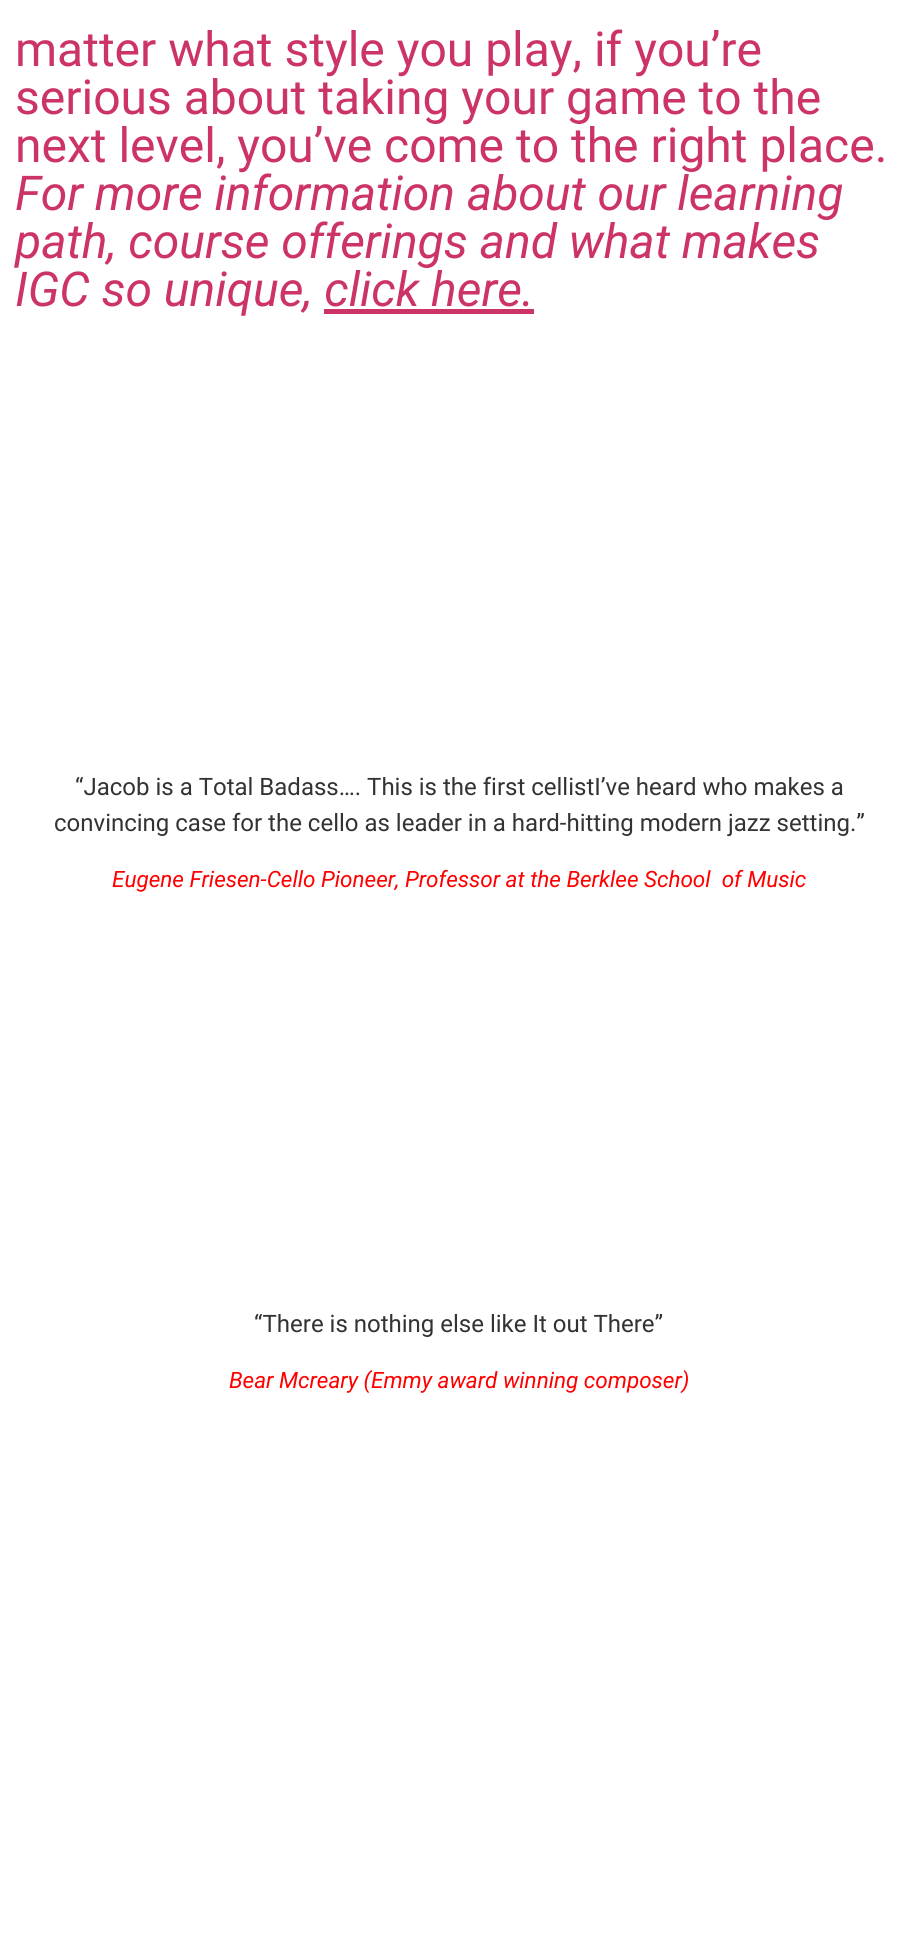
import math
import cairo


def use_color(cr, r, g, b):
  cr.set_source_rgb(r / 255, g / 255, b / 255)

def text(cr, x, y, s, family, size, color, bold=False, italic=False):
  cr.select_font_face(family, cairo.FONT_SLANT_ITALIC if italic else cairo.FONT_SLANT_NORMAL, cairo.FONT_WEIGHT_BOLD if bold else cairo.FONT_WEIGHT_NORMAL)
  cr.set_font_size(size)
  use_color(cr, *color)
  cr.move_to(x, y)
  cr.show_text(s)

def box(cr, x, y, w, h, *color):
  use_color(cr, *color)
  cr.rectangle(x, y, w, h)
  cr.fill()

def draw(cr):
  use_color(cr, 255, 255, 255)
  cr.paint()
  box(cr, 324, 309, 210, 5, 204, 51, 102)
  text(cr, 15, 66, "matter what style you play, if you’re", "Roboto", 48, (204, 51, 102))
  text(cr, 15, 114, "serious about taking your game to the", "Roboto", 48, (204, 51, 102))
  text(cr, 15, 162, "next level, you’ve come to the right place.", "Roboto", 48, (204, 51, 102))
  text(cr, 15, 210, "For more information about our learning", "Roboto", 48, (204, 51, 102), italic=True)
  text(cr, 15, 258, "path, course offerings and what makes", "Roboto", 48, (204, 51, 102), italic=True)
  text(cr, 15, 306, "IGC so unique, click here.", "Roboto", 48, (204, 51, 102), italic=True)
  text(cr, 75, 795, "“Jacob is a Total Badass…. This is the first cellistI’ve heard who makes a", "Roboto", 24, (51, 51, 51))
  text(cr, 54, 831, "convincing case for the cello as leader in a hard-hitting modern jazz setting.”", "Roboto", 24, (51, 51, 51))
  text(cr, 112, 887, "Eugene Friesen-Cello Pioneer, Professor at the Berklee School  of Music", "Roboto", 22.5, (255, 0, 0), italic=True)
  text(cr, 254, 1332, "“There is nothing else like It out There”", "Roboto", 24, (51, 51, 51))
  text(cr, 229, 1388, "Bear Mcreary (Emmy award winning composer)", "Roboto", 22.5, (255, 0, 0), italic=True)


surface = cairo.ImageSurface(cairo.FORMAT_RGB24, 918, 1951)
cr = cairo.Context(surface)
options = cairo.FontOptions()
options.set_hint_metrics(cairo.HINT_METRICS_OFF)
options.set_hint_style(cairo.HINT_STYLE_NONE)
cr.set_font_options(options)
cr.set_miter_limit(4)
draw(cr)
surface.write_to_png("out.png")
